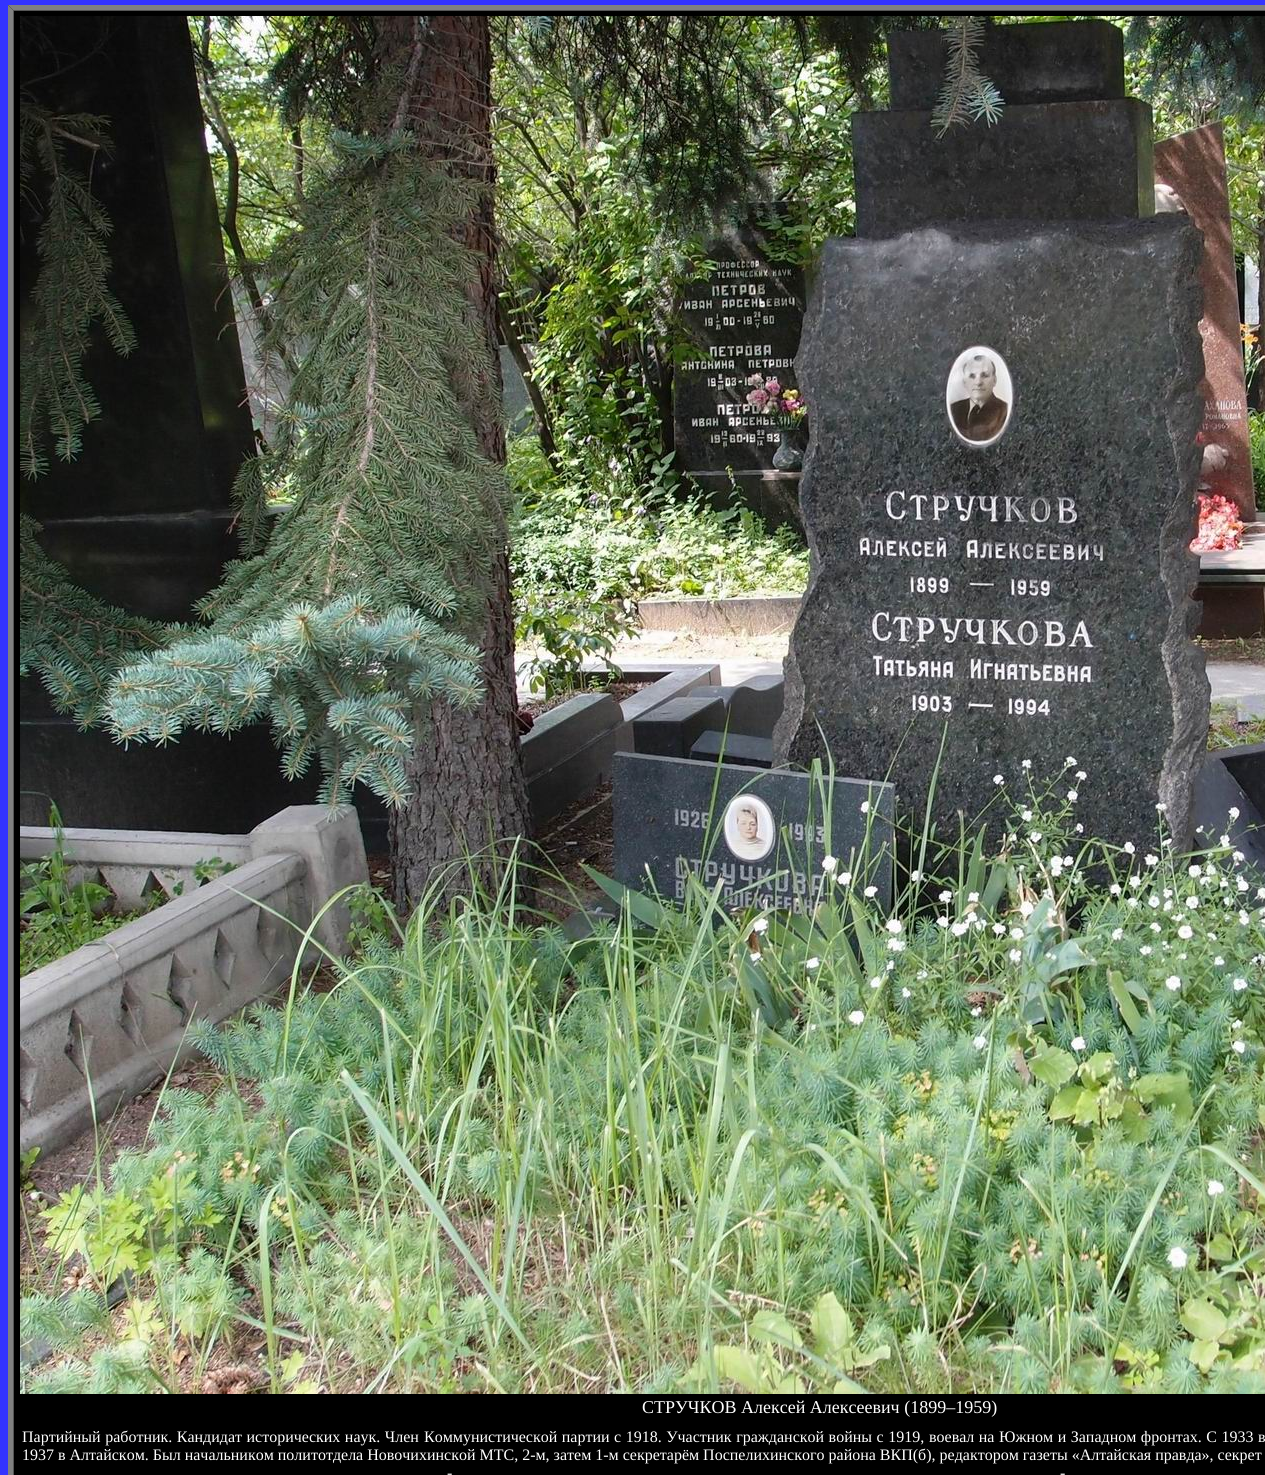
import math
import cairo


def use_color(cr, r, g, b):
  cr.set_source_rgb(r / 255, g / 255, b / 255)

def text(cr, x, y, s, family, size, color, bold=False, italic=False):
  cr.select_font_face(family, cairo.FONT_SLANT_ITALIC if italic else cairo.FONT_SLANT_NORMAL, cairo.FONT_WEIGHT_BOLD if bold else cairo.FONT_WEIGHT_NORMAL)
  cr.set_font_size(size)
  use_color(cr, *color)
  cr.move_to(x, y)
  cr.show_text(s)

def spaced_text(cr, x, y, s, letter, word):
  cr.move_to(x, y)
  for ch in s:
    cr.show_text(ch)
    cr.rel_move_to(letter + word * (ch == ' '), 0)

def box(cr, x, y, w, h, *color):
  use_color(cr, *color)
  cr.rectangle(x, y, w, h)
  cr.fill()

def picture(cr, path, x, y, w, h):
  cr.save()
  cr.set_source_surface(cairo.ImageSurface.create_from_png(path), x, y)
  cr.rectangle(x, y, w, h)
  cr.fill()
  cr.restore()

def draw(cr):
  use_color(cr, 51, 51, 255)
  cr.paint()
  box(cr, 8, 5, 1257, 1470, 0, 0, 0)
  use_color(cr, 128, 128, 128)
  cr.new_path()
  cr.move_to(8, 5)
  cr.line_to(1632, 5)
  cr.line_to(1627, 10)
  cr.line_to(13, 10)
  cr.close_path()
  cr.fill()
  cr.new_path()
  cr.move_to(8, 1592)
  cr.line_to(8, 5)
  cr.line_to(13, 10)
  cr.line_to(13, 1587)
  cr.close_path()
  cr.fill()
  box(cr, 13, 10, 1252, 1, 85, 85, 85)
  box(cr, 13, 10, 1, 1465, 85, 85, 85)
  picture(cr, "img_01.png", 20, 16, 1245, 1378)
  text(cr, 642, 1413, "СТРУЧКОВ Алексей Алексеевич (1899–1959)", "Liberation Serif", 18, (255, 255, 255))
  cr.set_font_size(16)
  spaced_text(cr, 22, 1442, "Партийный работник. Кандидат исторических наук. Член", 0, 0.5)
  spaced_text(cr, 424, 1442, "Коммунистической партии с 1918. Участник гражданской войны с 1919,", 0, 0.5)
  spaced_text(cr, 929, 1442, "воевал на Южном и Западном фронтах. С 1933 в", 0, 0.5)
  text(cr, 22, 1460, "1937 в Алтайском. Был начальником политотдела Новочихинской МТС, 2-м, затем 1-м секретарём Поспелихинского района ВКП(б), редактором газеты «Алтайская правда», секрет", "Liberation Serif", 16, (255, 255, 255))
  spaced_text(cr, 447, 1478, "-", 0, 2)
  spaced_text(cr, 1060, 1478, "-", 0, 2)


surface = cairo.ImageSurface(cairo.FORMAT_RGB24, 1265, 1475)
cr = cairo.Context(surface)
options = cairo.FontOptions()
options.set_hint_metrics(cairo.HINT_METRICS_OFF)
options.set_hint_style(cairo.HINT_STYLE_NONE)
cr.set_font_options(options)
cr.set_miter_limit(4)
draw(cr)
surface.write_to_png("out.png")
